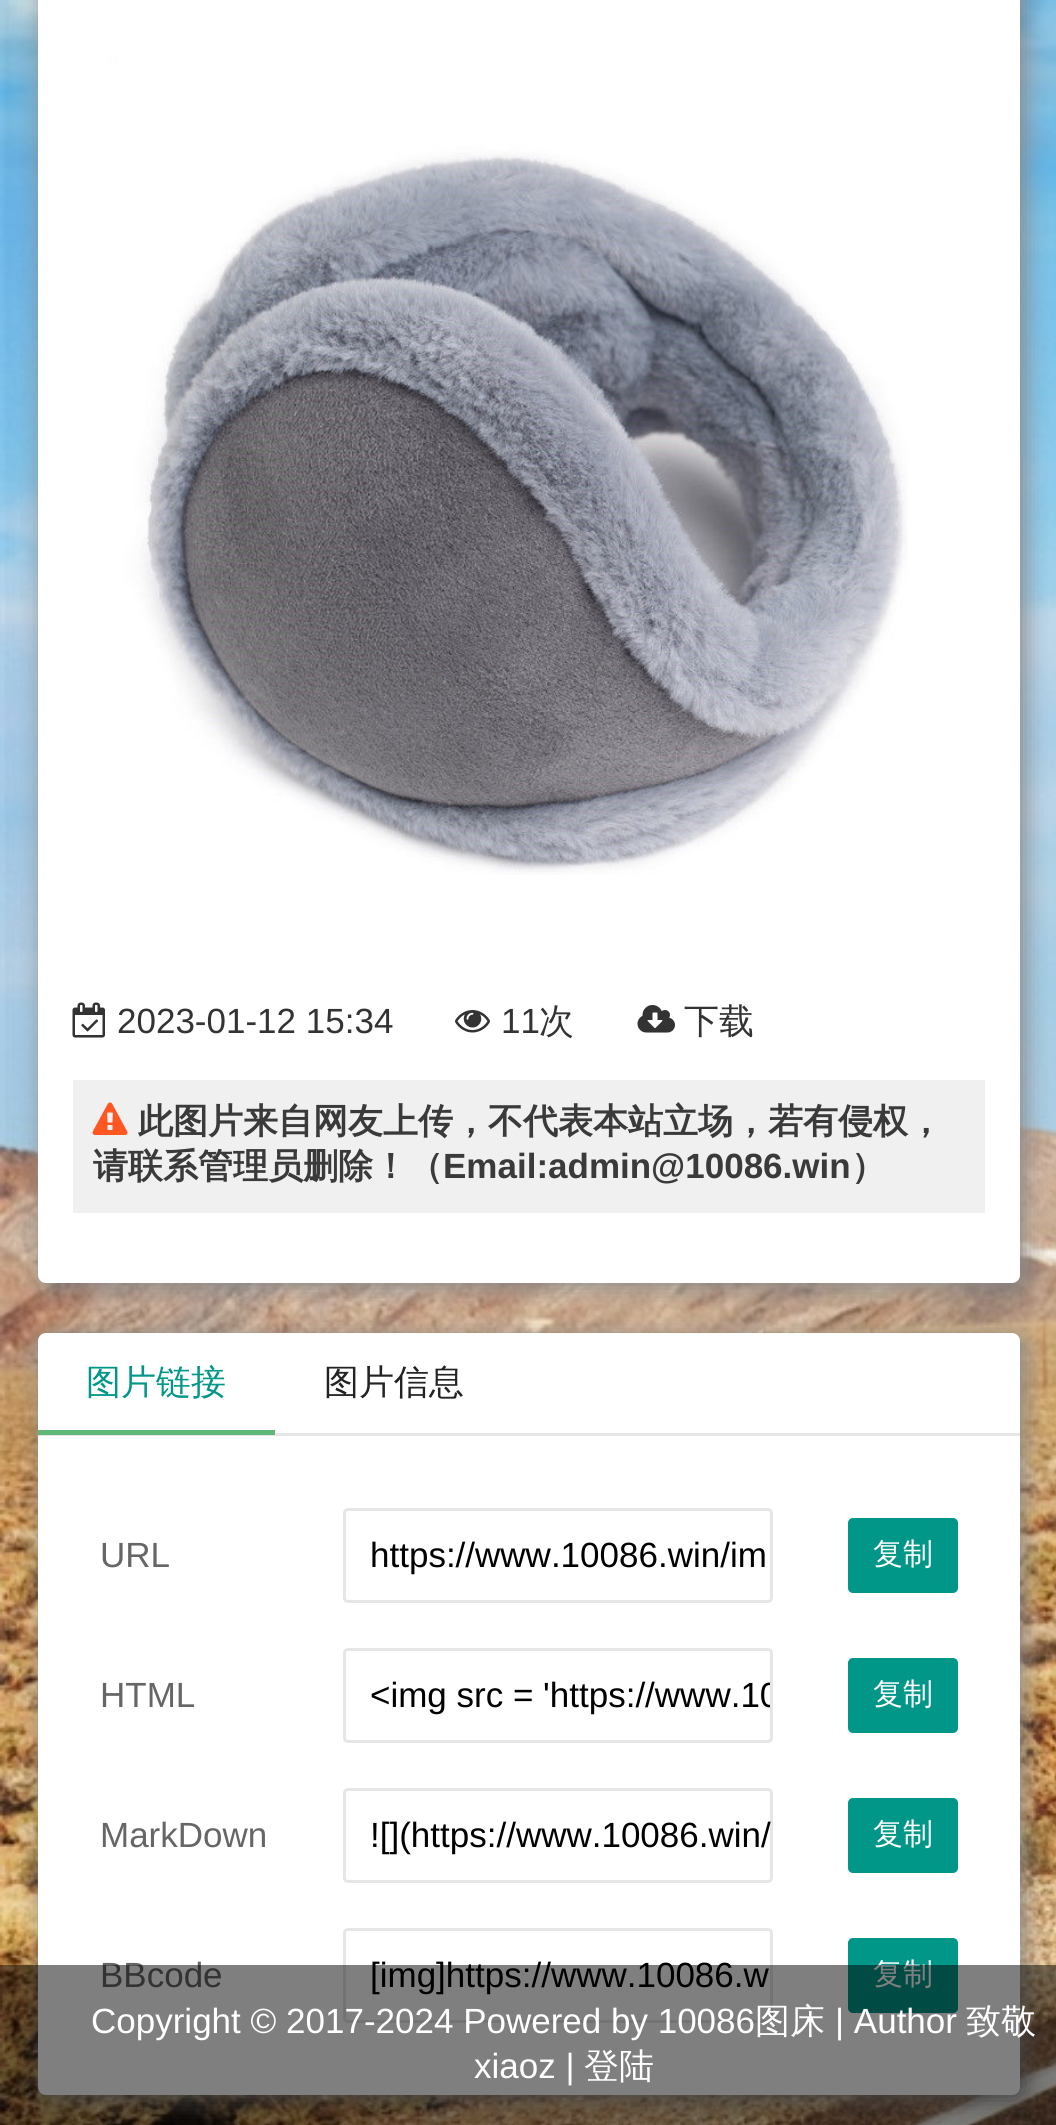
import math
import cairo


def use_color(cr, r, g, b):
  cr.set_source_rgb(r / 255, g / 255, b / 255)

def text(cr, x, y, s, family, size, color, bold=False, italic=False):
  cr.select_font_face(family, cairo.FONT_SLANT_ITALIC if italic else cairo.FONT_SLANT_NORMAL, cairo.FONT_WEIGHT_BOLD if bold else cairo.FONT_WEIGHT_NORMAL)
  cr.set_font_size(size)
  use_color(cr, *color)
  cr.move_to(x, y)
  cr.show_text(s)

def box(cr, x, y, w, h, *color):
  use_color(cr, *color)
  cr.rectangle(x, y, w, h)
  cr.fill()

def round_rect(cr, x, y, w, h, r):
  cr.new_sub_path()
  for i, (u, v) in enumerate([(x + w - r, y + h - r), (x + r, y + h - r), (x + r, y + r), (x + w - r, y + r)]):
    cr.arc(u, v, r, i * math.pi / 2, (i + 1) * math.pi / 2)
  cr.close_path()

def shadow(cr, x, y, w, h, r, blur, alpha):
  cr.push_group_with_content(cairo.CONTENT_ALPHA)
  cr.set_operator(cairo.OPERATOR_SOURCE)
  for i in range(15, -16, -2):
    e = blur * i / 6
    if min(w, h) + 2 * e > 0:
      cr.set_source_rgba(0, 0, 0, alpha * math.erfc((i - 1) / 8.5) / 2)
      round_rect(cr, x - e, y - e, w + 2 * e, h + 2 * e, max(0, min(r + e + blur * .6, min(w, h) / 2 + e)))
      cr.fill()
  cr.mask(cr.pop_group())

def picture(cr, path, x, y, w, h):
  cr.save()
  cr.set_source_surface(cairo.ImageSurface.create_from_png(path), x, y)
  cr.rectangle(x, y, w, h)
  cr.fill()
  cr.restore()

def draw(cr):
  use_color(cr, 255, 255, 255)
  cr.paint()
  picture(cr, "img_01.png", 0, 0, 1056, 2125)
  use_color(cr, 136, 136, 136)
  shadow(cr, 43, -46, 982, 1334, 8, 12.5, 1)
  use_color(cr, 255, 255, 255)
  round_rect(cr, 38, -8, 982, 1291, 8)
  cr.fill()
  picture(cr, "img_02.png", 109, 54, 799, 821)
  picture(cr, "img_03.png", 72, 1002, 33, 36)
  picture(cr, "img_04.png", 455, 1010, 35, 23)
  picture(cr, "img_05.png", 637, 1005, 38, 28)
  box(cr, 73, 1080, 912, 133, 240, 240, 240)
  picture(cr, "img_06.png", 92, 1102, 36, 33)
  use_color(cr, 136, 136, 136)
  shadow(cr, 43, 1338, 982, 762, 8, 12.5, 1)
  use_color(cr, 255, 255, 255)
  round_rect(cr, 38, 1333, 982, 762, 8)
  cr.fill()
  box(cr, 38, 1433, 982, 3, 230, 230, 230)
  box(cr, 38, 1430, 237, 5, 95, 184, 120)
  round_rect(cr, 344.5, 1509.5, 427, 92, 3.5)
  use_color(cr, 230, 230, 230)
  cr.set_line_width(3)
  cr.stroke()
  use_color(cr, 0, 150, 136)
  round_rect(cr, 848, 1518, 110, 75, 5)
  cr.fill()
  round_rect(cr, 344.5, 1649.5, 427, 92, 3.5)
  use_color(cr, 230, 230, 230)
  cr.stroke()
  use_color(cr, 0, 150, 136)
  round_rect(cr, 848, 1658, 110, 75, 5)
  cr.fill()
  round_rect(cr, 344.5, 1789.5, 427, 92, 3.5)
  use_color(cr, 230, 230, 230)
  cr.stroke()
  use_color(cr, 0, 150, 136)
  round_rect(cr, 848, 1798, 110, 75, 5)
  cr.fill()
  round_rect(cr, 344.5, 1929.5, 427, 92, 3.5)
  use_color(cr, 230, 230, 230)
  cr.stroke()
  use_color(cr, 0, 150, 136)
  round_rect(cr, 848, 1938, 110, 75, 5)
  cr.fill()
  text(cr, 117, 1033, "2023-01-12 15:34", "Liberation Sans", 35, (51, 51, 51))
  text(cr, 501, 1033, "11", "Liberation Sans", 35, (51, 51, 51))
  text(cr, 539, 1033, "次", "WenQuanYi Zen Hei Medium", 35, (51, 51, 51))
  text(cr, 684, 1033, "下载", "WenQuanYi Zen Hei Medium", 35, (51, 51, 51))
  text(cr, 138, 1133, "此图片来自网友上传，不代表本站立场，若有侵权，", "WenQuanYi Zen Hei", 35, (58, 58, 58), bold=True)
  text(cr, 93, 1178, "请联系管理员删除！（", "WenQuanYi Zen Hei", 35, (58, 58, 58), bold=True)
  text(cr, 443, 1178, "Email:admin@10086.win", "Liberation Sans", 35, (58, 58, 58), bold=True)
  text(cr, 851, 1178, "）", "WenQuanYi Zen Hei", 35, (58, 58, 58), bold=True)
  text(cr, 86, 1394, "图片链接", "WenQuanYi Zen Hei Medium", 35, (0, 150, 136))
  text(cr, 324, 1394, "图片信息", "WenQuanYi Zen Hei Medium", 35, (35, 35, 35))
  text(cr, 100, 1567, "URL", "Liberation Sans", 35, (102, 102, 102))
  text(cr, 370, 1567, "https://www.10086.win/im", "Liberation Sans", 35, (0, 0, 0))
  text(cr, 873, 1564, "复制", "WenQuanYi Zen Hei Medium", 30, (255, 255, 255))
  text(cr, 100, 1707, "HTML", "Liberation Sans", 35, (102, 102, 102))
  cr.save()
  cr.rectangle(370, 1675, 400, 40)
  cr.clip()
  text(cr, 370, 1707, "<img src = 'https://www.10", "Liberation Sans", 35, (0, 0, 0))
  cr.restore()
  text(cr, 873, 1704, "复制", "WenQuanYi Zen Hei Medium", 30, (255, 255, 255))
  text(cr, 100, 1847, "MarkDown", "Liberation Sans", 35, (102, 102, 102))
  text(cr, 370, 1847, "![](https://www.10086.win/", "Liberation Sans", 35, (0, 0, 0))
  text(cr, 873, 1844, "复制", "WenQuanYi Zen Hei Medium", 30, (255, 255, 255))
  text(cr, 100, 1987, "BBcode", "Liberation Sans", 35, (102, 102, 102))
  text(cr, 370, 1987, "[img]https://www.10086.w", "Liberation Sans", 35, (0, 0, 0))
  text(cr, 873, 1984, "复制", "WenQuanYi Zen Hei Medium", 30, (255, 255, 255))
  cr.set_source_rgba(0, 0, 0, 0.5)
  cr.rectangle(0, 1965, 1056, 160)
  cr.fill()
  text(cr, 91, 2033, "Copyright © 2017-2024 Powered by 10086", "Liberation Sans", 35, (255, 255, 255))
  text(cr, 755, 2033, "图床", "WenQuanYi Zen Hei Medium", 35, (255, 255, 255))
  text(cr, 835, 2033, "| Author", "Liberation Sans", 35, (255, 255, 255))
  text(cr, 966, 2033, "致敬", "WenQuanYi Zen Hei Medium", 35, (255, 255, 255))
  text(cr, 474, 2078, "xiaoz |", "Liberation Sans", 35, (255, 255, 255))
  text(cr, 584, 2078, "登陆", "WenQuanYi Zen Hei Medium", 35, (255, 255, 255))


surface = cairo.ImageSurface(cairo.FORMAT_RGB24, 1056, 2125)
cr = cairo.Context(surface)
options = cairo.FontOptions()
options.set_hint_metrics(cairo.HINT_METRICS_OFF)
options.set_hint_style(cairo.HINT_STYLE_NONE)
cr.set_font_options(options)
cr.set_miter_limit(4)
draw(cr)
surface.write_to_png("out.png")
